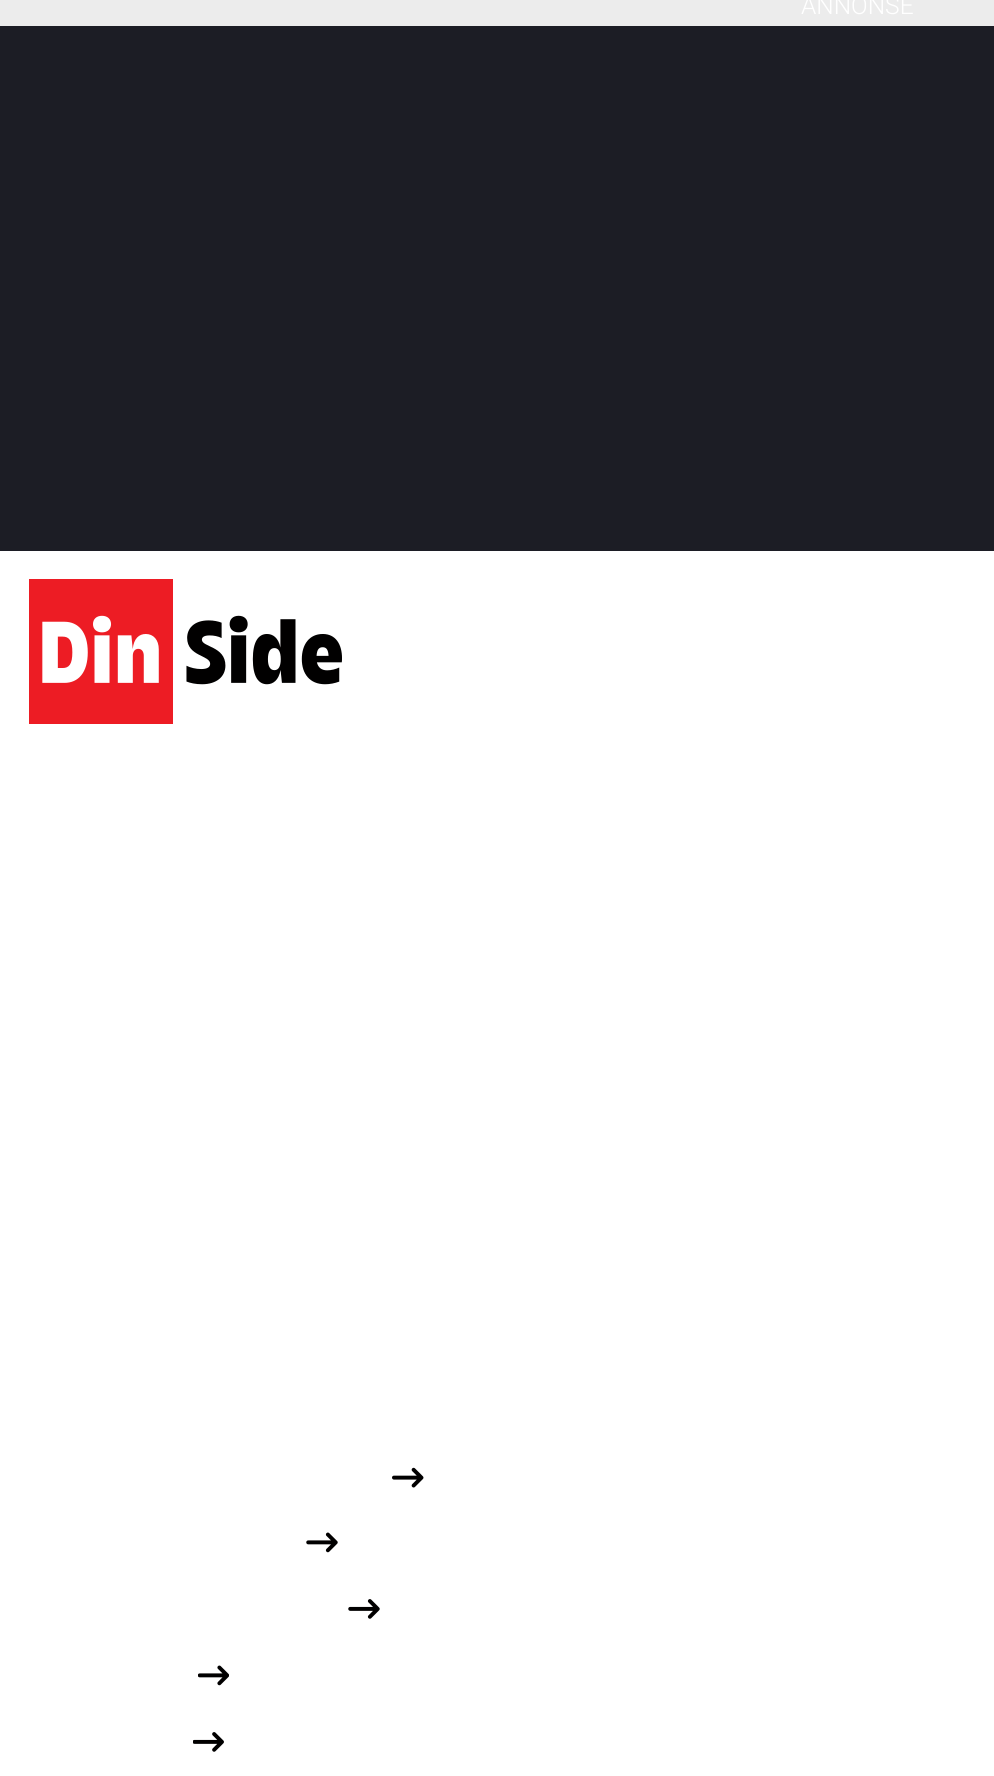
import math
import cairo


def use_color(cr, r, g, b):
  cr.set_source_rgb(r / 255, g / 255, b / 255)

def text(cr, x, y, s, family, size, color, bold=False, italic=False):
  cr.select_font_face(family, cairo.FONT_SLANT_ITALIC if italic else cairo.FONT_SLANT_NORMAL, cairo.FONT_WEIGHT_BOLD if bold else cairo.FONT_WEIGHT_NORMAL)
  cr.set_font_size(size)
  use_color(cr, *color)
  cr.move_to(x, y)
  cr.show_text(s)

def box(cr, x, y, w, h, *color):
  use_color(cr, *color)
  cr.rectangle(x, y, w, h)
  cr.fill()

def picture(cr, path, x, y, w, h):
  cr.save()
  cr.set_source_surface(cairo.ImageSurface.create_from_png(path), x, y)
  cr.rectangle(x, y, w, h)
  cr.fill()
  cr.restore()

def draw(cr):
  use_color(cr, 28, 29, 37)
  cr.paint()
  box(cr, 0, 0, 994, 26, 236, 236, 236)
  box(cr, 0, 551, 994, 1225, 255, 255, 255)
  picture(cr, "img_01.png", 29, 579, 313, 145)
  picture(cr, "img_02.png", 392, 1467, 32, 21)
  picture(cr, "img_03.png", 306, 1532, 32, 21)
  picture(cr, "img_04.png", 348, 1599, 32, 20)
  picture(cr, "img_05.png", 198, 1665, 31, 21)
  picture(cr, "img_06.png", 193, 1732, 31, 20)
  text(cr, 801, 14, "ANNONSE", "Roboto Light", 24.5, (255, 255, 255))


surface = cairo.ImageSurface(cairo.FORMAT_RGB24, 994, 1776)
cr = cairo.Context(surface)
options = cairo.FontOptions()
options.set_hint_metrics(cairo.HINT_METRICS_OFF)
options.set_hint_style(cairo.HINT_STYLE_NONE)
cr.set_font_options(options)
cr.set_miter_limit(4)
draw(cr)
surface.write_to_png("out.png")
